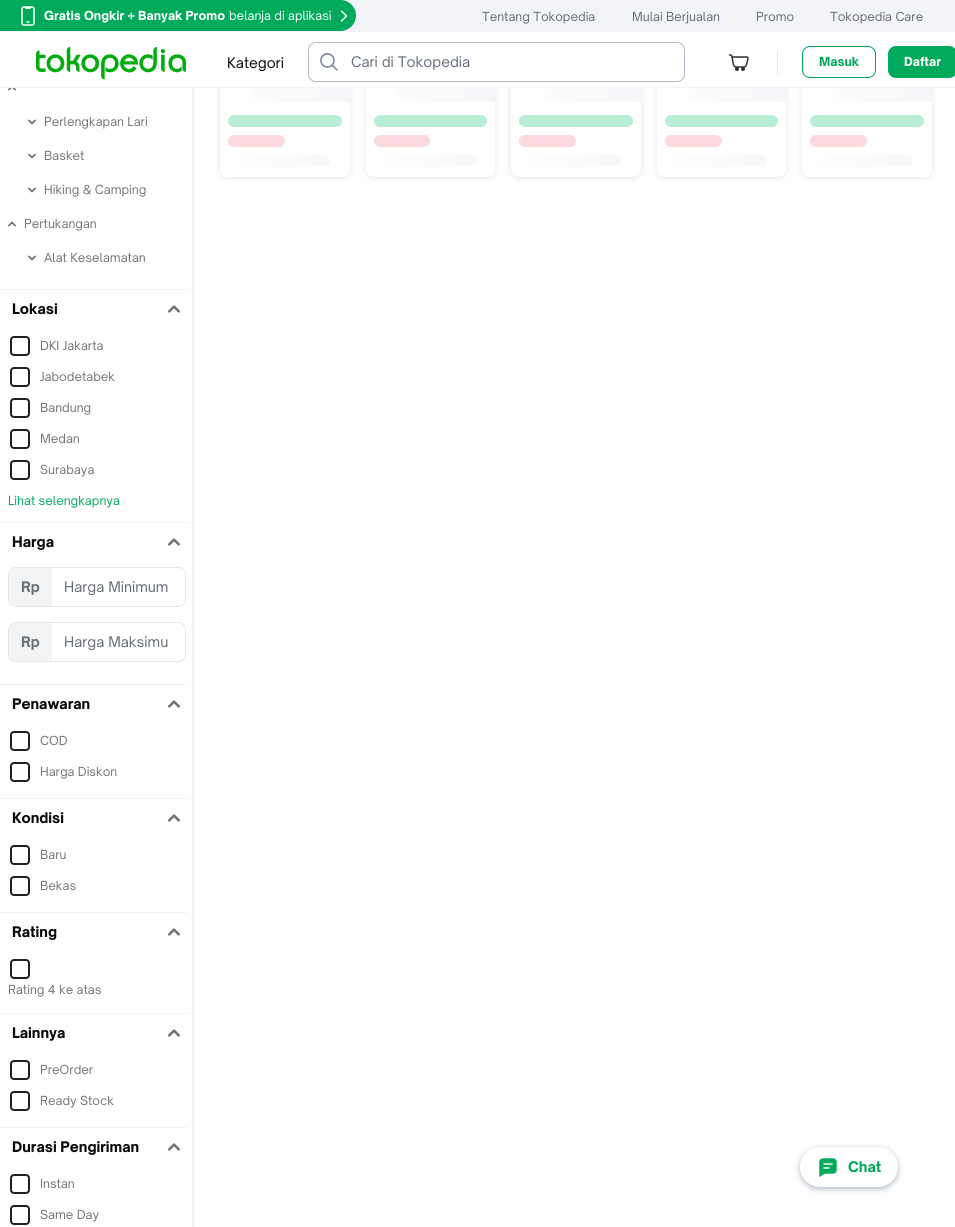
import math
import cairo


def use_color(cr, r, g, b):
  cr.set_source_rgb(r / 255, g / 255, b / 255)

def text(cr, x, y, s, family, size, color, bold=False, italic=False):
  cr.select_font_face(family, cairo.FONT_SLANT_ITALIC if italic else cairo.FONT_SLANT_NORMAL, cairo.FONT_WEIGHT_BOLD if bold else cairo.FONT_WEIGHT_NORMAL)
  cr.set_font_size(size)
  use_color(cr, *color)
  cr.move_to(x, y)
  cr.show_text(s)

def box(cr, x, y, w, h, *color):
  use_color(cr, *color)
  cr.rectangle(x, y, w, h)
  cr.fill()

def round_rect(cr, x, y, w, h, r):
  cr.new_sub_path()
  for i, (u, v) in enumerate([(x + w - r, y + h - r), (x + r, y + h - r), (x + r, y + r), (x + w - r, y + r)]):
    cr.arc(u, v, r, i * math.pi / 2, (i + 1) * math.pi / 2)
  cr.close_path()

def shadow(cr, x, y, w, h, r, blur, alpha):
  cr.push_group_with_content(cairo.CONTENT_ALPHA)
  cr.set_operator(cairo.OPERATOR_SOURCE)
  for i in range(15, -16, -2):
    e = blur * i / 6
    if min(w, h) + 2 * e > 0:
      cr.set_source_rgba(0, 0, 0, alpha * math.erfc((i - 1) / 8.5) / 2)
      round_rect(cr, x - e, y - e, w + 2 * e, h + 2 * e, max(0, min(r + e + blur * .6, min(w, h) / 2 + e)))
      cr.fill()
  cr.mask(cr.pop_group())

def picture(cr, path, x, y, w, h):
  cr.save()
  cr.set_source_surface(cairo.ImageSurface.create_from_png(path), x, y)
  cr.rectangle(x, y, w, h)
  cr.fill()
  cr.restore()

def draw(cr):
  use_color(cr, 255, 255, 255)
  cr.paint()
  cr.save()
  cr.set_fill_rule(cairo.FILL_RULE_EVEN_ODD)
  cr.new_path()
  cr.move_to(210, 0)
  cr.line_to(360, 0)
  cr.line_to(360, 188)
  cr.line_to(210, 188)
  cr.close_path()
  cr.move_to(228, -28)
  cr.line_to(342, -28)
  cr.curve_to(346.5, -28, 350, -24.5, 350, -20)
  cr.line_to(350, 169)
  cr.curve_to(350, 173.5, 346.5, 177, 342, 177)
  cr.line_to(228, 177)
  cr.curve_to(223.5, 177, 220, 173.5, 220, 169)
  cr.line_to(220, -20)
  cr.curve_to(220, -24.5, 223.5, -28, 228, -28)
  cr.close_path()
  cr.clip()
  use_color(cr, 0, 0, 0)
  shadow(cr, 220, -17, 130, 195, 8, 3, 0.1)
  cr.restore()
  cr.save()
  cr.set_fill_rule(cairo.FILL_RULE_EVEN_ODD)
  cr.new_path()
  cr.move_to(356, 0)
  cr.line_to(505, 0)
  cr.line_to(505, 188)
  cr.line_to(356, 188)
  cr.close_path()
  cr.move_to(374, -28)
  cr.line_to(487, -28)
  cr.curve_to(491.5, -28, 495, -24.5, 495, -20)
  cr.line_to(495, 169)
  cr.curve_to(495, 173.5, 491.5, 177, 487, 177)
  cr.line_to(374, 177)
  cr.curve_to(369.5, 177, 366, 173.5, 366, 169)
  cr.line_to(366, -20)
  cr.curve_to(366, -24.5, 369.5, -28, 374, -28)
  cr.close_path()
  cr.clip()
  use_color(cr, 0, 0, 0)
  shadow(cr, 366, -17, 129, 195, 8, 3, 0.1)
  cr.restore()
  cr.save()
  cr.set_fill_rule(cairo.FILL_RULE_EVEN_ODD)
  cr.new_path()
  cr.move_to(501, 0)
  cr.line_to(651, 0)
  cr.line_to(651, 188)
  cr.line_to(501, 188)
  cr.close_path()
  cr.move_to(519, -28)
  cr.line_to(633, -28)
  cr.curve_to(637.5, -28, 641, -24.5, 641, -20)
  cr.line_to(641, 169)
  cr.curve_to(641, 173.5, 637.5, 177, 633, 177)
  cr.line_to(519, 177)
  cr.curve_to(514.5, 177, 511, 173.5, 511, 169)
  cr.line_to(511, -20)
  cr.curve_to(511, -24.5, 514.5, -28, 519, -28)
  cr.close_path()
  cr.clip()
  use_color(cr, 0, 0, 0)
  shadow(cr, 511, -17, 130, 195, 8, 3, 0.1)
  cr.restore()
  cr.save()
  cr.set_fill_rule(cairo.FILL_RULE_EVEN_ODD)
  cr.new_path()
  cr.move_to(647, 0)
  cr.line_to(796, 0)
  cr.line_to(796, 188)
  cr.line_to(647, 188)
  cr.close_path()
  cr.move_to(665, -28)
  cr.line_to(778, -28)
  cr.curve_to(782.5, -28, 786, -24.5, 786, -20)
  cr.line_to(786, 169)
  cr.curve_to(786, 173.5, 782.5, 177, 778, 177)
  cr.line_to(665, 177)
  cr.curve_to(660.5, 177, 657, 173.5, 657, 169)
  cr.line_to(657, -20)
  cr.curve_to(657, -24.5, 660.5, -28, 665, -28)
  cr.close_path()
  cr.clip()
  use_color(cr, 0, 0, 0)
  shadow(cr, 657, -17, 129, 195, 8, 3, 0.1)
  cr.restore()
  cr.save()
  cr.set_fill_rule(cairo.FILL_RULE_EVEN_ODD)
  cr.new_path()
  cr.move_to(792, 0)
  cr.line_to(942, 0)
  cr.line_to(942, 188)
  cr.line_to(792, 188)
  cr.close_path()
  cr.move_to(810, -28)
  cr.line_to(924, -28)
  cr.curve_to(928.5, -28, 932, -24.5, 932, -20)
  cr.line_to(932, 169)
  cr.curve_to(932, 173.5, 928.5, 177, 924, 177)
  cr.line_to(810, 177)
  cr.curve_to(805.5, 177, 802, 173.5, 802, 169)
  cr.line_to(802, -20)
  cr.curve_to(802, -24.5, 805.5, -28, 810, -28)
  cr.close_path()
  cr.clip()
  use_color(cr, 0, 0, 0)
  shadow(cr, 802, -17, 130, 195, 8, 3, 0.1)
  cr.restore()
  cr.save()
  cr.rectangle(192, 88, 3, 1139)
  cr.clip()
  use_color(cr, 0, 0, 0)
  shadow(cr, 0, -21, 192, 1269, 12, 3, 0.12)
  cr.restore()
  box(cr, 192, 32, 744, 55, 255, 255, 255)
  box(cr, 0, 87, 955, 1, 242, 244, 247)
  box(cr, 0, 0, 955, 32, 242, 244, 247)
  use_color(cr, 0, 170, 91)
  cr.new_path()
  cr.move_to(0, 0)
  cr.line_to(340.5, 0)
  cr.curve_to(349, 0, 356, 7, 356, 15.5)
  cr.curve_to(356, 24, 349, 31, 340.5, 31)
  cr.line_to(0, 31)
  cr.close_path()
  cr.fill()
  picture(cr, "img_01.png", 21, 6, 14, 20)
  picture(cr, "img_02.png", 340, 10, 8, 12)
  picture(cr, "img_03.png", 36, 47, 150, 33)
  round_rect(cr, 308.5, 42.5, 376, 39, 7.5)
  use_color(cr, 179, 187, 201)
  cr.set_line_width(1)
  cr.stroke()
  use_color(cr, 255, 255, 255)
  round_rect(cr, 309, 43, 375, 38, 8)
  cr.fill()
  picture(cr, "img_04.png", 320, 53, 18, 18)
  picture(cr, "img_05.png", 728, 54, 21, 17)
  box(cr, 777, 50, 1, 24, 230, 233, 240)
  round_rect(cr, 802.5, 46.5, 73, 31, 7.5)
  use_color(cr, 0, 170, 91)
  cr.stroke()
  round_rect(cr, 888, 46, 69, 32, 8)
  cr.fill()
  gradient = cairo.LinearGradient(220, 72, 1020, 72)
  gradient.add_color_stop_rgba(0, 1, 1, 1, 1)
  gradient.add_color_stop_rgba(0.2, 0.949, 0.957, 0.969, 1)
  gradient.add_color_stop_rgba(0.4, 1, 1, 1, 1)
  gradient.add_color_stop_rgba(1, 1, 1, 1, 1)
  cr.set_source(gradient)
  cr.rectangle(251, 88, 99, 14)
  cr.fill()
  use_color(cr, 183, 238, 213)
  round_rect(cr, 228, 115, 114, 12, 6)
  cr.fill()
  use_color(cr, 252, 217, 222)
  round_rect(cr, 228, 135, 57, 12, 6)
  cr.fill()
  gradient = cairo.LinearGradient(228, 161, 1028, 161)
  gradient.add_color_stop_rgba(0, 1, 1, 1, 1)
  gradient.add_color_stop_rgba(0.2, 0.949, 0.957, 0.969, 1)
  gradient.add_color_stop_rgba(0.4, 1, 1, 1, 1)
  gradient.add_color_stop_rgba(1, 1, 1, 1, 1)
  cr.set_source(gradient)
  round_rect(cr, 228, 155, 102, 12, 6)
  cr.fill()
  gradient = cairo.LinearGradient(366, 72, 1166, 72)
  gradient.add_color_stop_rgba(0, 1, 1, 1, 1)
  gradient.add_color_stop_rgba(0.2, 0.949, 0.957, 0.969, 1)
  gradient.add_color_stop_rgba(0.4, 1, 1, 1, 1)
  gradient.add_color_stop_rgba(1, 1, 1, 1, 1)
  cr.set_source(gradient)
  cr.rectangle(397, 88, 98, 14)
  cr.fill()
  use_color(cr, 183, 238, 213)
  round_rect(cr, 374, 115, 113, 12, 6)
  cr.fill()
  use_color(cr, 252, 217, 222)
  round_rect(cr, 374, 135, 56, 12, 6)
  cr.fill()
  gradient = cairo.LinearGradient(374, 161, 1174, 161)
  gradient.add_color_stop_rgba(0, 1, 1, 1, 1)
  gradient.add_color_stop_rgba(0.2, 0.949, 0.957, 0.969, 1)
  gradient.add_color_stop_rgba(0.4, 1, 1, 1, 1)
  gradient.add_color_stop_rgba(1, 1, 1, 1, 1)
  cr.set_source(gradient)
  round_rect(cr, 374, 155, 102, 12, 6)
  cr.fill()
  gradient = cairo.LinearGradient(511, 72, 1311, 72)
  gradient.add_color_stop_rgba(0, 1, 1, 1, 1)
  gradient.add_color_stop_rgba(0.2, 0.949, 0.957, 0.969, 1)
  gradient.add_color_stop_rgba(0.4, 1, 1, 1, 1)
  gradient.add_color_stop_rgba(1, 1, 1, 1, 1)
  cr.set_source(gradient)
  cr.rectangle(542, 88, 99, 14)
  cr.fill()
  use_color(cr, 183, 238, 213)
  round_rect(cr, 519, 115, 114, 12, 6)
  cr.fill()
  use_color(cr, 252, 217, 222)
  round_rect(cr, 519, 135, 57, 12, 6)
  cr.fill()
  gradient = cairo.LinearGradient(519, 161, 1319, 161)
  gradient.add_color_stop_rgba(0, 1, 1, 1, 1)
  gradient.add_color_stop_rgba(0.2, 0.949, 0.957, 0.969, 1)
  gradient.add_color_stop_rgba(0.4, 1, 1, 1, 1)
  gradient.add_color_stop_rgba(1, 1, 1, 1, 1)
  cr.set_source(gradient)
  round_rect(cr, 519, 155, 102, 12, 6)
  cr.fill()
  gradient = cairo.LinearGradient(657, 72, 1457, 72)
  gradient.add_color_stop_rgba(0, 1, 1, 1, 1)
  gradient.add_color_stop_rgba(0.2, 0.949, 0.957, 0.969, 1)
  gradient.add_color_stop_rgba(0.4, 1, 1, 1, 1)
  gradient.add_color_stop_rgba(1, 1, 1, 1, 1)
  cr.set_source(gradient)
  cr.rectangle(688, 88, 98, 14)
  cr.fill()
  use_color(cr, 183, 238, 213)
  round_rect(cr, 665, 115, 113, 12, 6)
  cr.fill()
  use_color(cr, 252, 217, 222)
  round_rect(cr, 665, 135, 57, 12, 6)
  cr.fill()
  gradient = cairo.LinearGradient(665, 161, 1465, 161)
  gradient.add_color_stop_rgba(0, 1, 1, 1, 1)
  gradient.add_color_stop_rgba(0.2, 0.949, 0.957, 0.969, 1)
  gradient.add_color_stop_rgba(0.4, 1, 1, 1, 1)
  gradient.add_color_stop_rgba(1, 1, 1, 1, 1)
  cr.set_source(gradient)
  round_rect(cr, 665, 155, 102, 12, 6)
  cr.fill()
  gradient = cairo.LinearGradient(802, 72, 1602, 72)
  gradient.add_color_stop_rgba(0, 1, 1, 1, 1)
  gradient.add_color_stop_rgba(0.2, 0.949, 0.957, 0.969, 1)
  gradient.add_color_stop_rgba(0.4, 1, 1, 1, 1)
  gradient.add_color_stop_rgba(1, 1, 1, 1, 1)
  cr.set_source(gradient)
  cr.rectangle(833, 88, 99, 14)
  cr.fill()
  use_color(cr, 183, 238, 213)
  round_rect(cr, 810, 115, 114, 12, 6)
  cr.fill()
  use_color(cr, 252, 217, 222)
  round_rect(cr, 810, 135, 57, 12, 6)
  cr.fill()
  gradient = cairo.LinearGradient(810, 161, 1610, 161)
  gradient.add_color_stop_rgba(0, 1, 1, 1, 1)
  gradient.add_color_stop_rgba(0.2, 0.949, 0.957, 0.969, 1)
  gradient.add_color_stop_rgba(0.4, 1, 1, 1, 1)
  gradient.add_color_stop_rgba(1, 1, 1, 1, 1)
  cr.set_source(gradient)
  round_rect(cr, 810, 155, 103, 12, 6)
  cr.fill()
  picture(cr, "img_06.png", 8, 88, 8, 3)
  picture(cr, "img_07.png", 28, 119, 8, 6)
  picture(cr, "img_07.png", 28, 153, 8, 6)
  picture(cr, "img_07.png", 28, 187, 8, 6)
  picture(cr, "img_08.png", 8, 221, 8, 6)
  picture(cr, "img_07.png", 28, 255, 8, 6)
  box(cr, 0, 289, 188, 1, 242, 244, 247)
  picture(cr, "img_09.png", 168, 305, 12, 8)
  round_rect(cr, 11, 337, 18, 18, 3)
  use_color(cr, 30, 32, 37)
  cr.set_line_width(2)
  cr.stroke()
  round_rect(cr, 11, 368, 18, 18, 3)
  cr.stroke()
  round_rect(cr, 11, 399, 18, 18, 3)
  cr.stroke()
  round_rect(cr, 11, 430, 18, 18, 3)
  cr.stroke()
  round_rect(cr, 11, 461, 18, 18, 3)
  cr.stroke()
  box(cr, 0, 522, 188, 1, 242, 244, 247)
  picture(cr, "img_09.png", 168, 538, 12, 8)
  round_rect(cr, 8.5, 567.5, 177, 39, 7.5)
  use_color(cr, 229, 231, 233)
  cr.set_line_width(1)
  cr.stroke()
  use_color(cr, 243, 244, 245)
  cr.new_path()
  cr.move_to(16, 568)
  cr.line_to(52, 568)
  cr.line_to(52, 606)
  cr.line_to(16, 606)
  cr.curve_to(12, 606, 9, 603, 9, 599)
  cr.line_to(9, 575)
  cr.curve_to(9, 571, 12, 568, 16, 568)
  cr.close_path()
  cr.fill()
  round_rect(cr, 8.5, 622.5, 177, 39, 7.5)
  use_color(cr, 229, 231, 233)
  cr.stroke()
  use_color(cr, 243, 244, 245)
  cr.new_path()
  cr.move_to(16, 623)
  cr.line_to(52, 623)
  cr.line_to(52, 661)
  cr.line_to(16, 661)
  cr.curve_to(12, 661, 9, 658, 9, 654)
  cr.line_to(9, 630)
  cr.curve_to(9, 626, 12, 623, 16, 623)
  cr.close_path()
  cr.fill()
  box(cr, 0, 684, 188, 1, 242, 244, 247)
  picture(cr, "img_09.png", 168, 700, 12, 8)
  round_rect(cr, 11, 732, 18, 18, 3)
  use_color(cr, 30, 32, 37)
  cr.set_line_width(2)
  cr.stroke()
  round_rect(cr, 11, 763, 18, 18, 3)
  cr.stroke()
  box(cr, 0, 798, 188, 1, 242, 244, 247)
  picture(cr, "img_09.png", 168, 814, 12, 8)
  round_rect(cr, 11, 846, 18, 18, 3)
  use_color(cr, 30, 32, 37)
  cr.stroke()
  round_rect(cr, 11, 877, 18, 18, 3)
  cr.stroke()
  box(cr, 0, 912, 188, 1, 242, 244, 247)
  picture(cr, "img_09.png", 168, 928, 12, 8)
  round_rect(cr, 11, 960, 18, 18, 3)
  use_color(cr, 30, 32, 37)
  cr.stroke()
  box(cr, 0, 1013, 188, 1, 242, 244, 247)
  picture(cr, "img_09.png", 168, 1029, 12, 8)
  round_rect(cr, 11, 1061, 18, 18, 3)
  use_color(cr, 30, 32, 37)
  cr.stroke()
  round_rect(cr, 11, 1092, 18, 18, 3)
  cr.stroke()
  box(cr, 0, 1127, 188, 1, 242, 244, 247)
  picture(cr, "img_09.png", 168, 1143, 12, 8)
  round_rect(cr, 11, 1175, 18, 18, 3)
  use_color(cr, 30, 32, 37)
  cr.stroke()
  round_rect(cr, 11, 1206, 18, 18, 3)
  cr.stroke()
  use_color(cr, 179, 187, 201)
  shadow(cr, 800, 1149, 98, 40, 20, 3, 1)
  use_color(cr, 255, 255, 255)
  round_rect(cr, 800, 1147, 98, 40, 20)
  cr.fill()
  picture(cr, "img_10.png", 819, 1158, 18, 19)
  text(cr, 44, 20, "Gratis Ongkir + Banyak Promo", "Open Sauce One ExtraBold", 12, (255, 255, 255))
  text(cr, 229, 20, "belanja di aplikasi", "Open Sauce One", 12, (255, 255, 255))
  text(cr, 482, 21, "Tentang Tokopedia", "Open Sauce One", 12, (101, 108, 123))
  text(cr, 632, 21, "Mulai Berjualan", "Open Sauce One", 12, (101, 108, 123))
  text(cr, 756, 21, "Promo", "Open Sauce One", 12, (101, 108, 123))
  text(cr, 830, 21, "Tokopedia Care", "Open Sauce One", 12, (101, 108, 123))
  text(cr, 227, 68, "Kategori", "Open Sauce One", 14, (8, 8, 8))
  text(cr, 351, 67, "Cari di Tokopedia", "Open Sauce One", 14, (101, 108, 123))
  text(cr, 819, 66, "Masuk", "Open Sauce One ExtraBold", 12, (0, 170, 91))
  text(cr, 904, 66, "Daftar", "Open Sauce One ExtraBold", 12, (255, 255, 255))
  text(cr, 44, 126, "Perlengkapan Lari", "Open Sauce One", 12, (117, 117, 117))
  text(cr, 44, 160, "Basket", "Open Sauce One", 12, (117, 117, 117))
  text(cr, 44, 194, "Hiking & Camping", "Open Sauce One", 12, (117, 117, 117))
  text(cr, 24, 228, "Pertukangan", "Open Sauce One", 12, (117, 117, 117))
  text(cr, 44, 262, "Alat Keselamatan", "Open Sauce One", 12, (117, 117, 117))
  text(cr, 12, 314, "Lokasi", "Open Sauce One ExtraBold", 14, (8, 8, 8))
  text(cr, 40, 350, "DKI Jakarta", "Open Sauce One", 12, (117, 117, 117))
  text(cr, 40, 381, "Jabodetabek", "Open Sauce One", 12, (117, 117, 117))
  text(cr, 40, 412, "Bandung", "Open Sauce One", 12, (117, 117, 117))
  text(cr, 40, 443, "Medan", "Open Sauce One", 12, (117, 117, 117))
  text(cr, 40, 474, "Surabaya", "Open Sauce One", 12, (117, 117, 117))
  text(cr, 8, 505, "Lihat selengkapnya", "Open Sauce One", 12, (0, 170, 91))
  text(cr, 12, 547, "Harga", "Open Sauce One ExtraBold", 14, (8, 8, 8))
  text(cr, 21, 592, "Rp", "Open Sauce One ExtraBold", 14, (111, 114, 119))
  text(cr, 64, 592, "Harga Minimum", "Open Sauce One", 14, (101, 108, 123))
  text(cr, 21, 647, "Rp", "Open Sauce One ExtraBold", 14, (111, 114, 119))
  text(cr, 64, 647, "Harga Maksimu", "Open Sauce One", 14, (101, 108, 123))
  text(cr, 12, 709, "Penawaran", "Open Sauce One ExtraBold", 14, (8, 8, 8))
  text(cr, 40, 745, "COD", "Open Sauce One", 12, (117, 117, 117))
  text(cr, 40, 776, "Harga Diskon", "Open Sauce One", 12, (117, 117, 117))
  text(cr, 12, 823, "Kondisi", "Open Sauce One ExtraBold", 14, (8, 8, 8))
  text(cr, 40, 859, "Baru", "Open Sauce One", 12, (117, 117, 117))
  text(cr, 40, 890, "Bekas", "Open Sauce One", 12, (117, 117, 117))
  text(cr, 12, 937, "Rating", "Open Sauce One ExtraBold", 14, (8, 8, 8))
  text(cr, 8, 994, "Rating 4 ke atas", "Open Sauce One", 12, (117, 117, 117))
  text(cr, 12, 1038, "Lainnya", "Open Sauce One ExtraBold", 14, (8, 8, 8))
  text(cr, 40, 1074, "PreOrder", "Open Sauce One", 12, (117, 117, 117))
  text(cr, 40, 1105, "Ready Stock", "Open Sauce One", 12, (117, 117, 117))
  text(cr, 12, 1152, "Durasi Pengiriman", "Open Sauce One ExtraBold", 14, (8, 8, 8))
  text(cr, 40, 1188, "Instan", "Open Sauce One", 12, (117, 117, 117))
  text(cr, 40, 1219, "Same Day", "Open Sauce One", 12, (117, 117, 117))
  text(cr, 848, 1172, "Chat", "Open Sauce One ExtraBold", 14, (0, 170, 91))


surface = cairo.ImageSurface(cairo.FORMAT_RGB24, 955, 1227)
cr = cairo.Context(surface)
options = cairo.FontOptions()
options.set_hint_metrics(cairo.HINT_METRICS_OFF)
options.set_hint_style(cairo.HINT_STYLE_NONE)
cr.set_font_options(options)
cr.set_miter_limit(4)
draw(cr)
surface.write_to_png("out.png")
